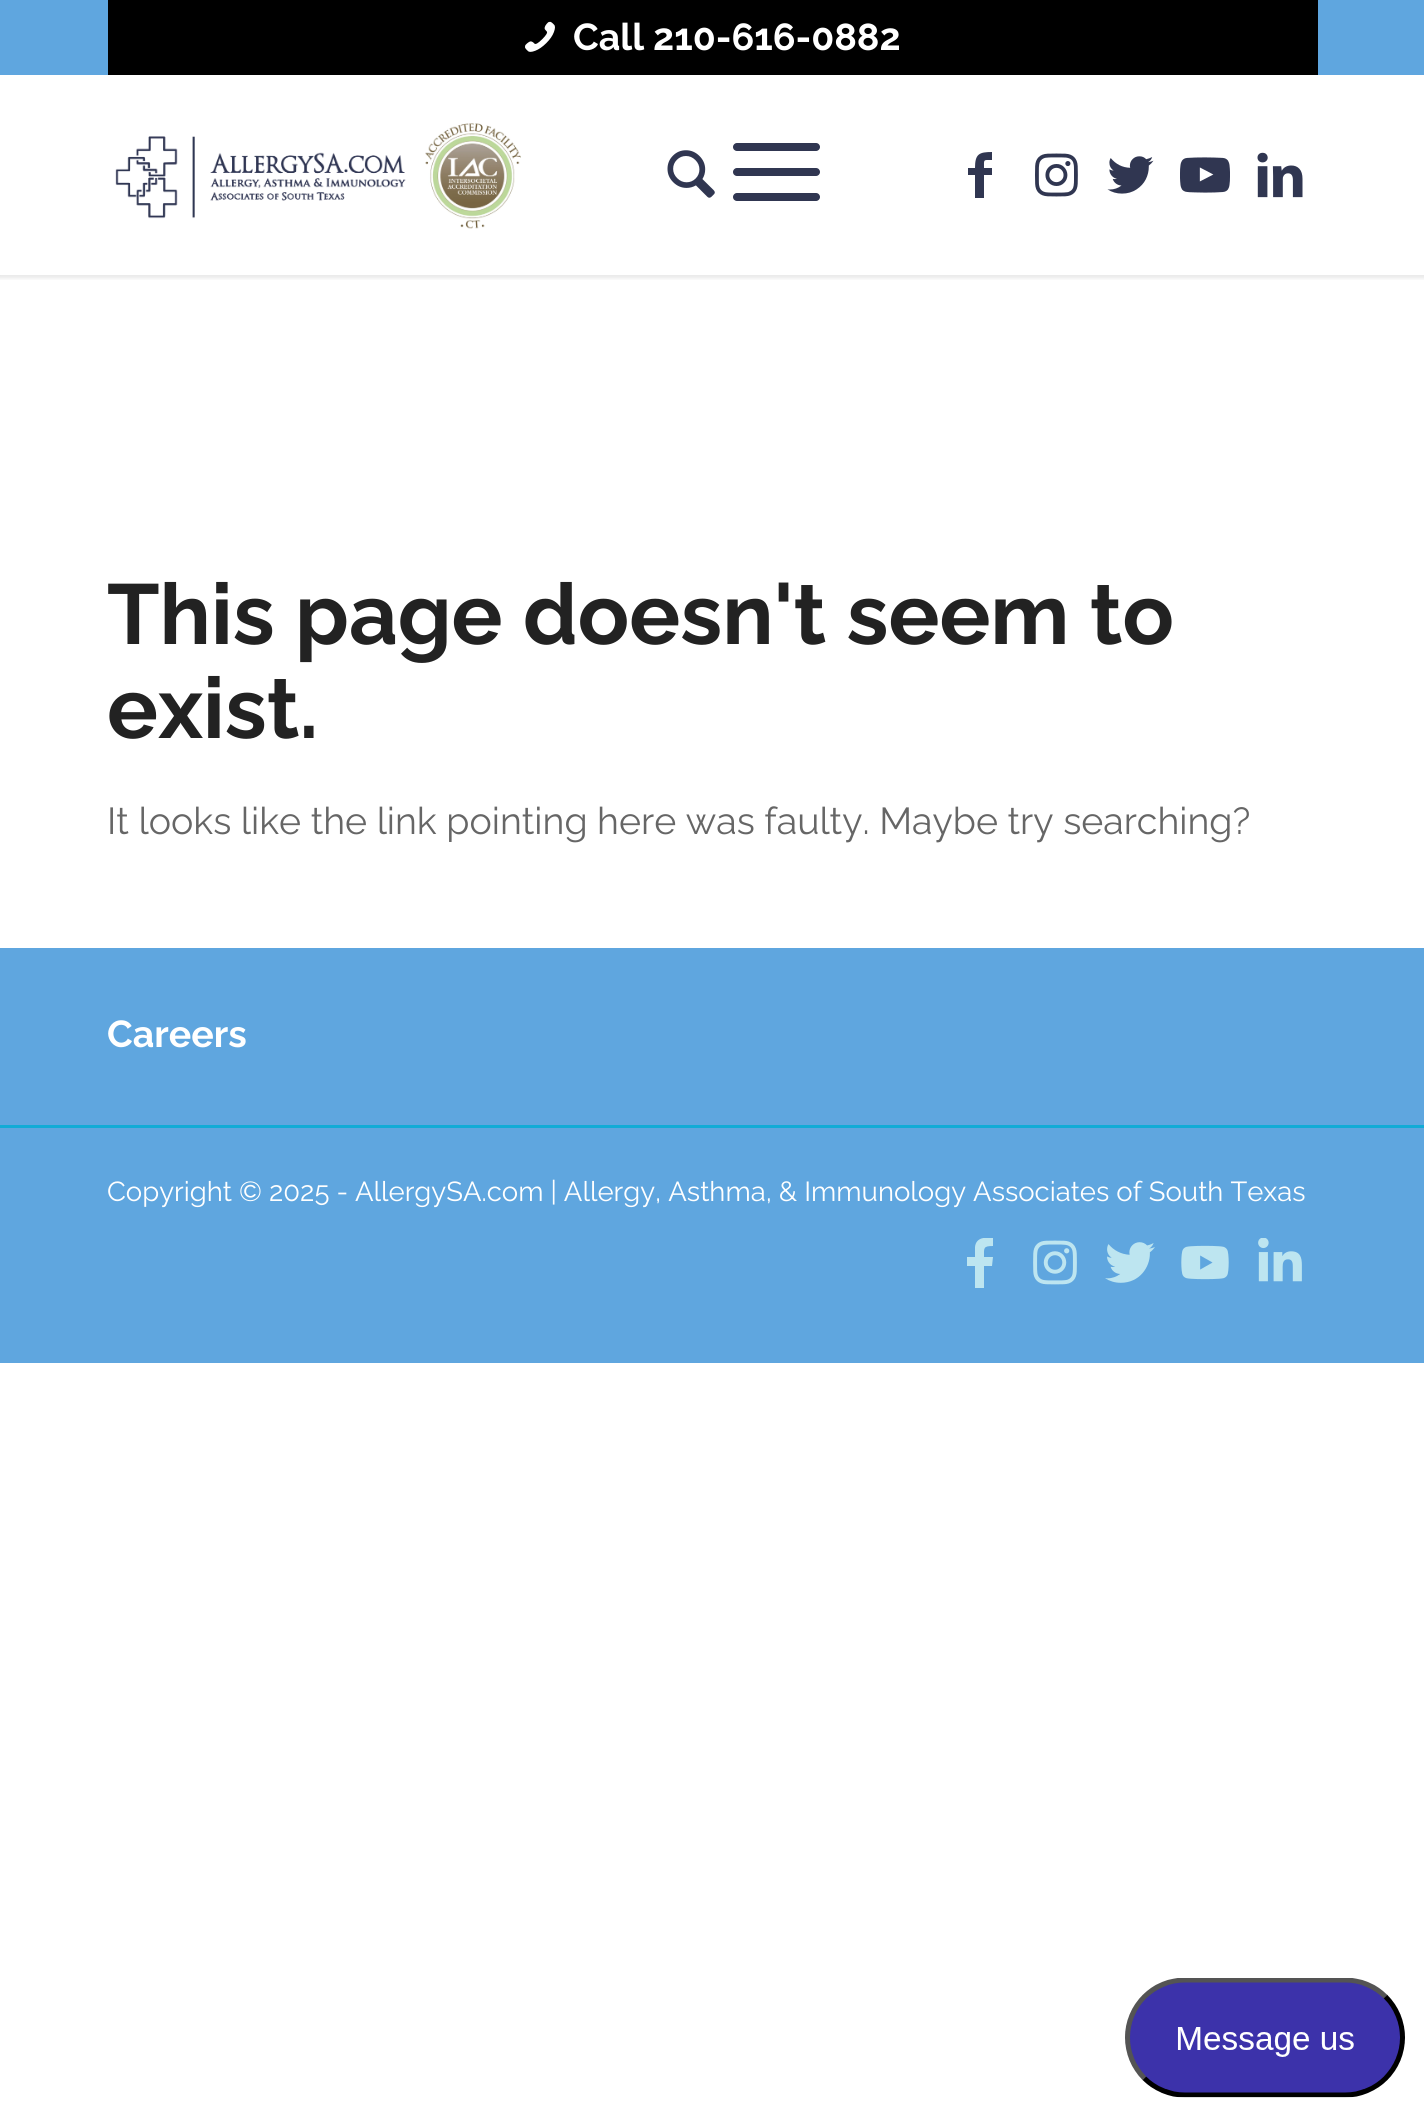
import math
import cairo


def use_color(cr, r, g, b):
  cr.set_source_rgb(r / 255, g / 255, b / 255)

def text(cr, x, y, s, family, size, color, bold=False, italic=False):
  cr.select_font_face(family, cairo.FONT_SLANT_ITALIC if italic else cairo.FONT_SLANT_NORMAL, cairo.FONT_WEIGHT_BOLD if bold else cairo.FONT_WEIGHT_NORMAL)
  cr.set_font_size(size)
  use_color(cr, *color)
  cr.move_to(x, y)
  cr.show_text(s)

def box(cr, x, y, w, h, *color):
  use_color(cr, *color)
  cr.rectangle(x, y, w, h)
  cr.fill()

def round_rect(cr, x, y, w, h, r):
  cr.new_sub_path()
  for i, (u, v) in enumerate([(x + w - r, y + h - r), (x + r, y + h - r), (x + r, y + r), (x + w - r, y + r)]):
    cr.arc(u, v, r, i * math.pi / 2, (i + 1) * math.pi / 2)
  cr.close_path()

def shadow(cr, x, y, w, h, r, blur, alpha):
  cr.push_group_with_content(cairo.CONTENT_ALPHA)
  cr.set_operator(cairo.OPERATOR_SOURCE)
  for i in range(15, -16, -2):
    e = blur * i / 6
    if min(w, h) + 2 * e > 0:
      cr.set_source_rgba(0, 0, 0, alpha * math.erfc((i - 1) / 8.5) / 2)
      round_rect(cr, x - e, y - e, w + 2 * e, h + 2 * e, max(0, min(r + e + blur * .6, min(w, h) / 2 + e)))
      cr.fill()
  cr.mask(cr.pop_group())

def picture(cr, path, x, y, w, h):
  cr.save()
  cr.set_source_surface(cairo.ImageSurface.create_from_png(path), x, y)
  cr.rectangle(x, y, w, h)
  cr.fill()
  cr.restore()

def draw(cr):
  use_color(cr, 255, 255, 255)
  cr.paint()
  cr.save()
  cr.rectangle(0, 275, 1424, 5)
  cr.clip()
  use_color(cr, 0, 0, 0)
  shadow(cr, -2, -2, 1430, 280, 0, 2.5, 0.1)
  cr.restore()
  box(cr, 0, 0, 1424, 75, 95, 166, 223)
  box(cr, 108, 0, 1210, 75, 0, 0, 0)
  picture(cr, "img_01.png", 525, 21, 30, 31)
  picture(cr, "img_02.png", 115, 123, 406, 106)
  picture(cr, "img_03.png", 667, 150, 48, 48)
  use_color(cr, 48, 54, 81)
  round_rect(cr, 733, 168, 87, 8, 4)
  cr.fill()
  round_rect(cr, 733, 143, 87, 8, 4)
  cr.fill()
  round_rect(cr, 733, 193, 87, 8, 4)
  cr.fill()
  cr.new_path()
  cr.move_to(992, 160)
  cr.curve_to(983, 160, 984, 159, 984, 168)
  cr.line_to(992, 168)
  cr.line_to(992, 175)
  cr.line_to(984, 175)
  cr.line_to(984, 198)
  cr.line_to(975, 198)
  cr.line_to(975, 175)
  cr.line_to(968, 175)
  cr.line_to(968, 168)
  cr.line_to(975, 168)
  cr.curve_to(975, 154, 979, 152, 992, 152)
  cr.close_path()
  cr.fill()
  picture(cr, "img_04.png", 1035, 153, 43, 44)
  picture(cr, "img_05.png", 1107, 156, 47, 38)
  picture(cr, "img_06.png", 1180, 157, 50, 36)
  picture(cr, "img_07.png", 1257, 152, 46, 46)
  box(cr, 0, 948, 1424, 177, 95, 166, 223)
  box(cr, 0, 1125, 1424, 3, 17, 171, 214)
  box(cr, 0, 1128, 1424, 235, 95, 166, 223)
  cr.save()
  cr.rectangle(955, 1238, 50, 50)
  cr.clip()
  use_color(cr, 189, 229, 240)
  cr.new_path()
  cr.move_to(992, 1266)
  cr.line_to(993, 1257)
  cr.line_to(984, 1257)
  cr.curve_to(984, 1248, 983, 1246, 993, 1246)
  cr.line_to(993, 1238)
  cr.curve_to(986, 1237, 976, 1237, 975, 1247)
  cr.line_to(975, 1257)
  cr.line_to(967, 1257)
  cr.line_to(967, 1266)
  cr.line_to(975, 1266)
  cr.line_to(975, 1288)
  cr.line_to(984, 1288)
  cr.line_to(984, 1266)
  cr.close_path()
  cr.fill()
  cr.restore()
  picture(cr, "img_08.png", 1033, 1240, 44, 45)
  picture(cr, "img_09.png", 1105, 1242, 50, 41)
  picture(cr, "img_10.png", 1181, 1245, 48, 35)
  picture(cr, "img_11.png", 1258, 1238, 44, 44)
  picture(cr, "img_12.png", 1125, 1978, 280, 120)
  text(cr, 573, 50, "Call 210-616-0882", "Raleway", 37.5, (255, 255, 255), bold=True)
  text(cr, 107, 644, "This page doesn't seem to", "Raleway", 85, (34, 34, 34), bold=True)
  text(cr, 107, 738, "exist.", "Raleway", 85, (34, 34, 34), bold=True)
  text(cr, 107, 834, "It looks like the link pointing here was faulty. Maybe try searching?", "Raleway", 37.5, (102, 102, 102))
  text(cr, 107, 1047, "Careers", "Raleway", 37.5, (255, 255, 255), bold=True)
  text(cr, 107, 1201, "Copyright © 2025 - AllergySA.com | Allergy, Asthma, & Immunology Associates of South Texas", "Raleway", 27.5, (255, 255, 255))


surface = cairo.ImageSurface(cairo.FORMAT_RGB24, 1424, 2117)
cr = cairo.Context(surface)
options = cairo.FontOptions()
options.set_hint_metrics(cairo.HINT_METRICS_OFF)
options.set_hint_style(cairo.HINT_STYLE_NONE)
cr.set_font_options(options)
cr.set_miter_limit(4)
draw(cr)
surface.write_to_png("out.png")
